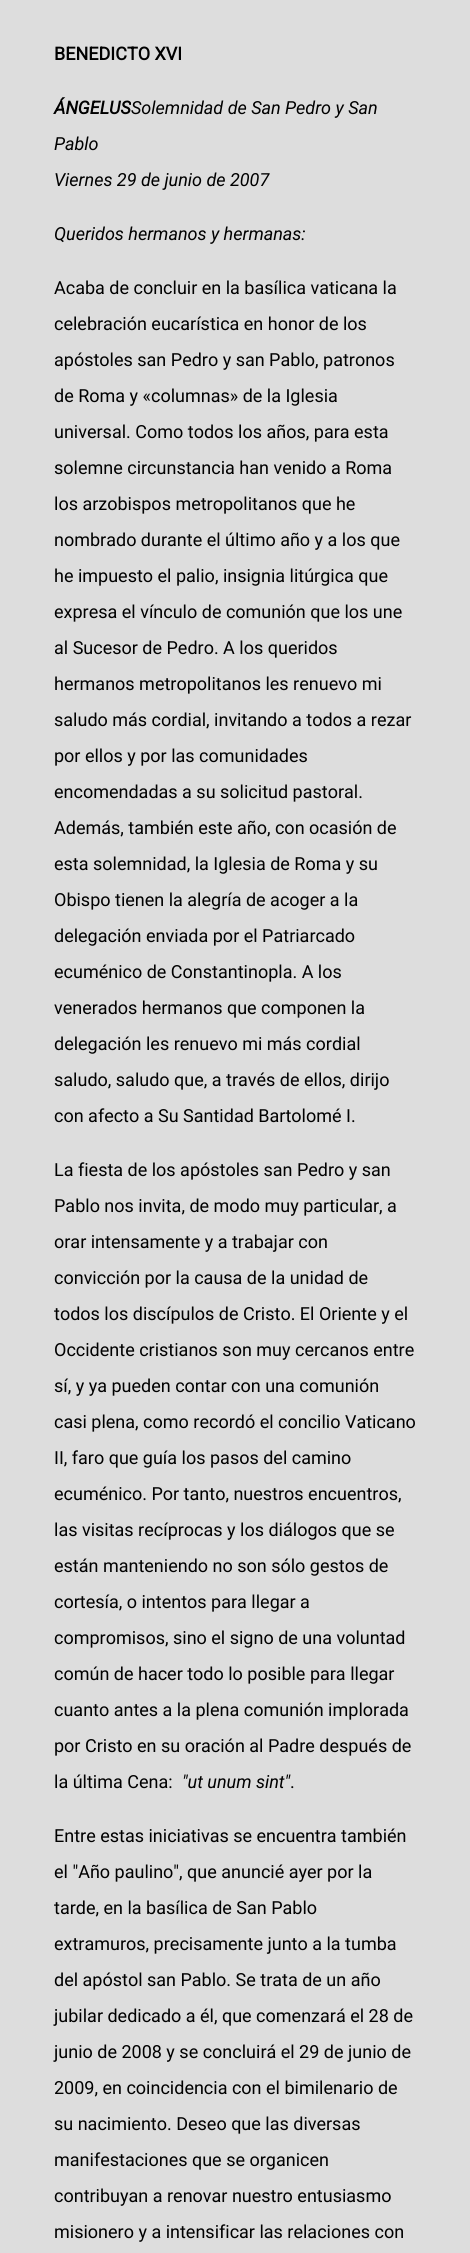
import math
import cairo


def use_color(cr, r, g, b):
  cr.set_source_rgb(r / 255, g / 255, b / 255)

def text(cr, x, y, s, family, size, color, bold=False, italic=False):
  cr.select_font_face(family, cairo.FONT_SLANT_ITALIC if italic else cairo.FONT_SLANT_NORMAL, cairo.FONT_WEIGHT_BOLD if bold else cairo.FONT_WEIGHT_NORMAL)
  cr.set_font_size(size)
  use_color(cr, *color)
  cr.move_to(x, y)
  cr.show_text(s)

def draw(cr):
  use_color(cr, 221, 221, 221)
  cr.paint()
  text(cr, 54, 60, "BENEDICTO XVI", "Roboto", 18, (0, 0, 0), bold=True)
  text(cr, 54, 114, "ÁNGELUS", "Roboto", 18, (0, 0, 0), bold=True, italic=True)
  text(cr, 131, 114, "Solemnidad de San Pedro y San", "Roboto", 18, (0, 0, 0), italic=True)
  text(cr, 54, 150, "Pablo", "Roboto", 18, (0, 0, 0), italic=True)
  text(cr, 54, 186, "Viernes 29 de junio de 2007", "Roboto", 18, (0, 0, 0), italic=True)
  text(cr, 54, 240, "Queridos hermanos y hermanas:", "Roboto", 18, (0, 0, 0), italic=True)
  text(cr, 54, 294, "Acaba de concluir en la basílica vaticana la", "Roboto", 18, (0, 0, 0))
  text(cr, 54, 330, "celebración eucarística en honor de los", "Roboto", 18, (0, 0, 0))
  text(cr, 54, 366, "apóstoles san Pedro y san Pablo, patronos", "Roboto", 18, (0, 0, 0))
  text(cr, 54, 402, "de Roma y «columnas» de la Iglesia", "Roboto", 18, (0, 0, 0))
  text(cr, 54, 438, "universal. Como todos los años, para esta", "Roboto", 18, (0, 0, 0))
  text(cr, 54, 474, "solemne circunstancia han venido a Roma", "Roboto", 18, (0, 0, 0))
  text(cr, 54, 510, "los arzobispos metropolitanos que he", "Roboto", 18, (0, 0, 0))
  text(cr, 54, 546, "nombrado durante el último año y a los que", "Roboto", 18, (0, 0, 0))
  text(cr, 54, 582, "he impuesto el palio, insignia litúrgica que", "Roboto", 18, (0, 0, 0))
  text(cr, 54, 618, "expresa el vínculo de comunión que los une", "Roboto", 18, (0, 0, 0))
  text(cr, 54, 654, "al Sucesor de Pedro. A los queridos", "Roboto", 18, (0, 0, 0))
  text(cr, 54, 690, "hermanos metropolitanos les renuevo mi", "Roboto", 18, (0, 0, 0))
  text(cr, 54, 726, "saludo más cordial, invitando a todos a rezar", "Roboto", 18, (0, 0, 0))
  text(cr, 54, 762, "por ellos y por las comunidades", "Roboto", 18, (0, 0, 0))
  text(cr, 54, 798, "encomendadas a su solicitud pastoral.", "Roboto", 18, (0, 0, 0))
  text(cr, 54, 834, "Además, también este año, con ocasión de", "Roboto", 18, (0, 0, 0))
  text(cr, 54, 870, "esta solemnidad, la Iglesia de Roma y su", "Roboto", 18, (0, 0, 0))
  text(cr, 54, 906, "Obispo tienen la alegría de acoger a la", "Roboto", 18, (0, 0, 0))
  text(cr, 54, 942, "delegación enviada por el Patriarcado", "Roboto", 18, (0, 0, 0))
  text(cr, 54, 978, "ecuménico de Constantinopla. A los", "Roboto", 18, (0, 0, 0))
  text(cr, 54, 1014, "venerados hermanos que componen la", "Roboto", 18, (0, 0, 0))
  text(cr, 54, 1050, "delegación les renuevo mi más cordial", "Roboto", 18, (0, 0, 0))
  text(cr, 54, 1086, "saludo, saludo que, a través de ellos, dirijo", "Roboto", 18, (0, 0, 0))
  text(cr, 54, 1122, "con afecto a Su Santidad Bartolomé I.", "Roboto", 18, (0, 0, 0))
  text(cr, 54, 1176, "La fiesta de los apóstoles san Pedro y san", "Roboto", 18, (0, 0, 0))
  text(cr, 54, 1212, "Pablo nos invita, de modo muy particular, a", "Roboto", 18, (0, 0, 0))
  text(cr, 54, 1248, "orar intensamente y a trabajar con", "Roboto", 18, (0, 0, 0))
  text(cr, 54, 1284, "convicción por la causa de la unidad de", "Roboto", 18, (0, 0, 0))
  text(cr, 54, 1320, "todos los discípulos de Cristo. El Oriente y el", "Roboto", 18, (0, 0, 0))
  text(cr, 54, 1356, "Occidente cristianos son muy cercanos entre", "Roboto", 18, (0, 0, 0))
  text(cr, 54, 1392, "sí, y ya pueden contar con una comunión", "Roboto", 18, (0, 0, 0))
  text(cr, 54, 1428, "casi plena, como recordó el concilio Vaticano", "Roboto", 18, (0, 0, 0))
  text(cr, 54, 1464, "II, faro que guía los pasos del camino", "Roboto", 18, (0, 0, 0))
  text(cr, 54, 1500, "ecuménico. Por tanto, nuestros encuentros,", "Roboto", 18, (0, 0, 0))
  text(cr, 54, 1536, "las visitas recíprocas y los diálogos que se", "Roboto", 18, (0, 0, 0))
  text(cr, 54, 1572, "están manteniendo no son sólo gestos de", "Roboto", 18, (0, 0, 0))
  text(cr, 54, 1608, "cortesía, o intentos para llegar a", "Roboto", 18, (0, 0, 0))
  text(cr, 54, 1644, "compromisos, sino el signo de una voluntad", "Roboto", 18, (0, 0, 0))
  text(cr, 54, 1680, "común de hacer todo lo posible para llegar", "Roboto", 18, (0, 0, 0))
  text(cr, 54, 1716, "cuanto antes a la plena comunión implorada", "Roboto", 18, (0, 0, 0))
  text(cr, 54, 1752, "por Cristo en su oración al Padre después de", "Roboto", 18, (0, 0, 0))
  text(cr, 54, 1788, "la última Cena:", "Roboto", 18, (0, 0, 0))
  text(cr, 182, 1788, "\"ut unum sint\"", "Roboto", 18, (0, 0, 0), italic=True)
  text(cr, 290, 1788, ".", "Roboto", 18, (0, 0, 0))
  text(cr, 54, 1842, "Entre estas iniciativas se encuentra también", "Roboto", 18, (0, 0, 0))
  text(cr, 54, 1878, "el \"Año paulino\", que anuncié ayer por la", "Roboto", 18, (0, 0, 0))
  text(cr, 54, 1914, "tarde, en la basílica de San Pablo", "Roboto", 18, (0, 0, 0))
  text(cr, 54, 1950, "extramuros, precisamente junto a la tumba", "Roboto", 18, (0, 0, 0))
  text(cr, 54, 1986, "del apóstol san Pablo. Se trata de un año", "Roboto", 18, (0, 0, 0))
  text(cr, 54, 2022, "jubilar dedicado a él, que comenzará el 28 de", "Roboto", 18, (0, 0, 0))
  text(cr, 54, 2058, "junio de 2008 y se concluirá el 29 de junio de", "Roboto", 18, (0, 0, 0))
  text(cr, 54, 2094, "2009, en coincidencia con el bimilenario de", "Roboto", 18, (0, 0, 0))
  text(cr, 54, 2130, "su nacimiento. Deseo que las diversas", "Roboto", 18, (0, 0, 0))
  text(cr, 54, 2166, "manifestaciones que se organicen", "Roboto", 18, (0, 0, 0))
  text(cr, 54, 2202, "contribuyan a renovar nuestro entusiasmo", "Roboto", 18, (0, 0, 0))
  text(cr, 54, 2238, "misionero y a intensificar las relaciones con", "Roboto", 18, (0, 0, 0))


surface = cairo.ImageSurface(cairo.FORMAT_RGB24, 470, 2253)
cr = cairo.Context(surface)
options = cairo.FontOptions()
options.set_hint_metrics(cairo.HINT_METRICS_OFF)
options.set_hint_style(cairo.HINT_STYLE_NONE)
cr.set_font_options(options)
cr.set_miter_limit(4)
draw(cr)
surface.write_to_png("out.png")
